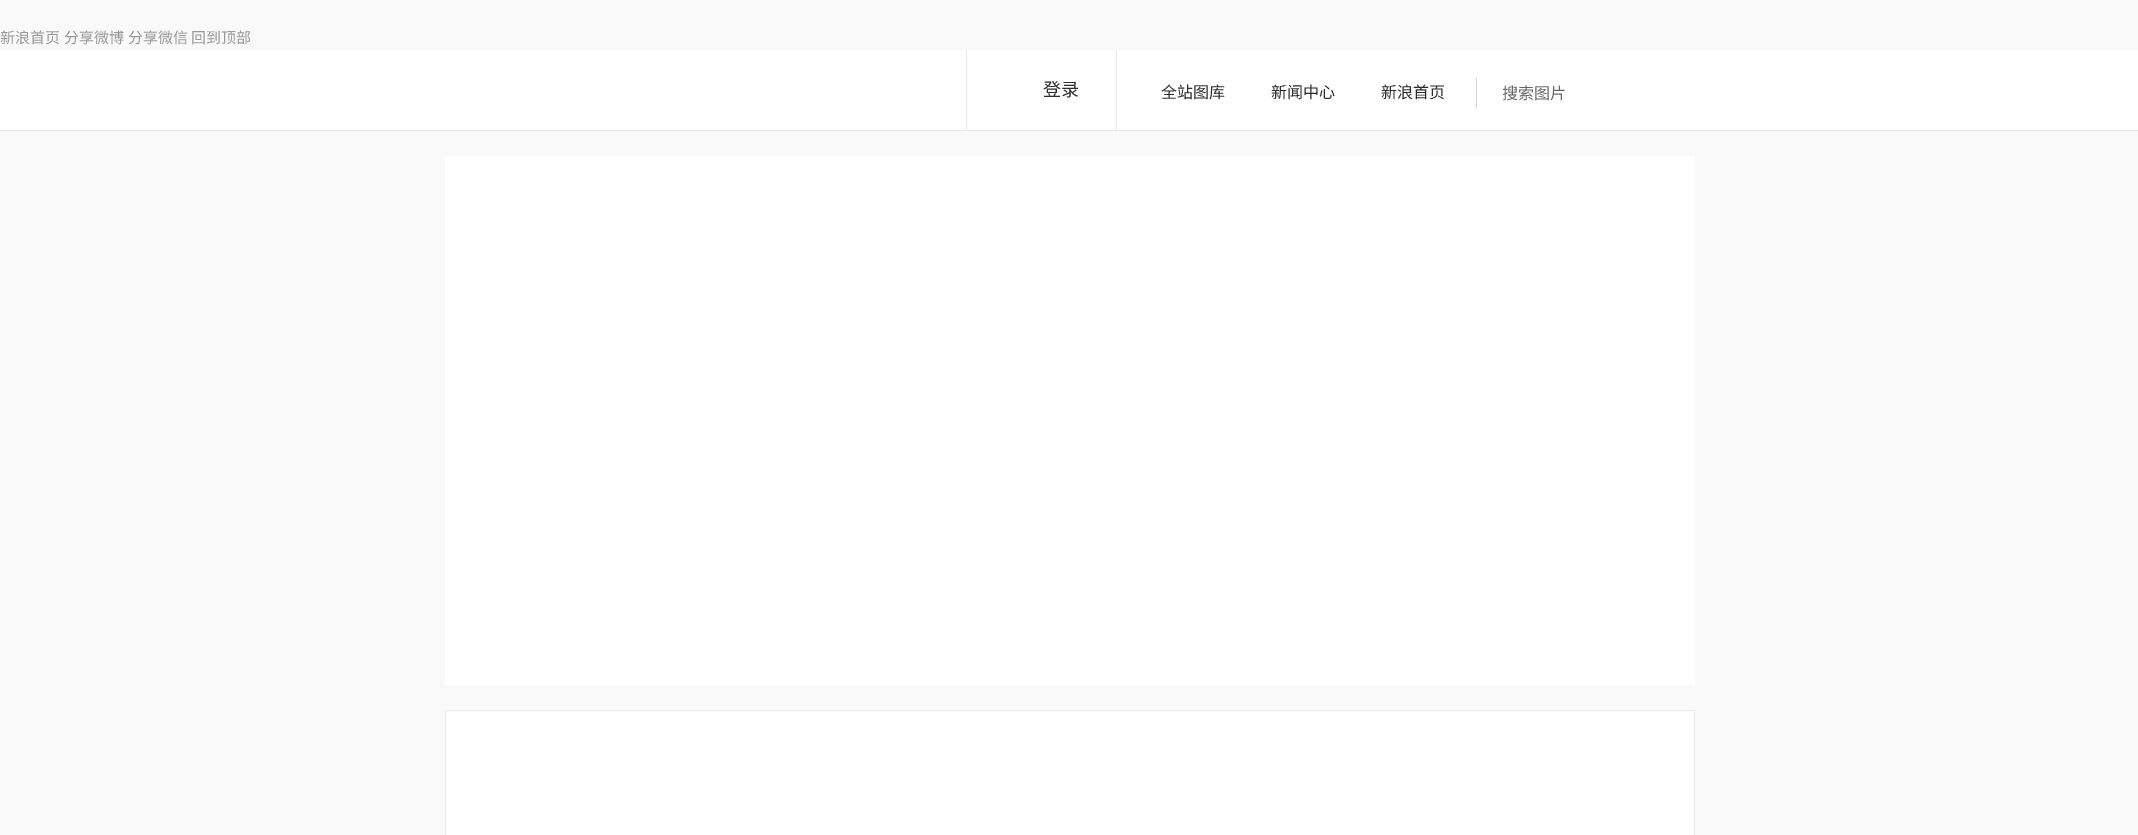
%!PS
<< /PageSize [2138 835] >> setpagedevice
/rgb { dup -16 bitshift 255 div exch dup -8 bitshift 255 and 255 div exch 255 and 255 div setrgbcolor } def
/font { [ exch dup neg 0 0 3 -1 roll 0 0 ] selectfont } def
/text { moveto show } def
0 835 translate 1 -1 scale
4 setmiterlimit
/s1 { /NotoSansCJKSC-Regular 15 font 16#999999 rgb } def
/s2 { /NotoSansCJKSC-Regular 18 font 16#2C2C2C rgb } def
/s3 { /NotoSansCJKSC-Regular 16 font 16#2C2C2C rgb } def
/s4 { /NotoSansCJKSC-Regular 16 font 16#666666 rgb } def
16#F9F9F9 rgb
0 0 2138 835 rectfill
s1
(新浪首页) 0 43 text
(分享微博) 64 43 text
(分享微信) 128 43 text
(回到顶部) 191 43 text
16#FFFFFF rgb
0 50 2138 80 rectfill
16#E8E8E8 rgb
0 130 2138 1 rectfill
16#E9E9E9 rgb
1116 50 1 80 rectfill
966 50 1 80 rectfill
s2
(登录) 1043 96 text
s3
(全站图库) 1161 98 text
(新闻中心) 1271 98 text
(新浪首页) 1381 98 text
16#D7D4CF rgb
1476 78 1 30 rectfill
gsave
1503 81 150 24 rectclip
s4
(搜索图片) 1502 99 text
grestore
16#FFFFFF rgb
445 156 1250 529 rectfill
445.5 710.5 moveto 1694.5 710.5 lineto 1694.5 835.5 lineto 445.5 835.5 lineto closepath gsave fill grestore
16#EEEEEE rgb
stroke
showpage
